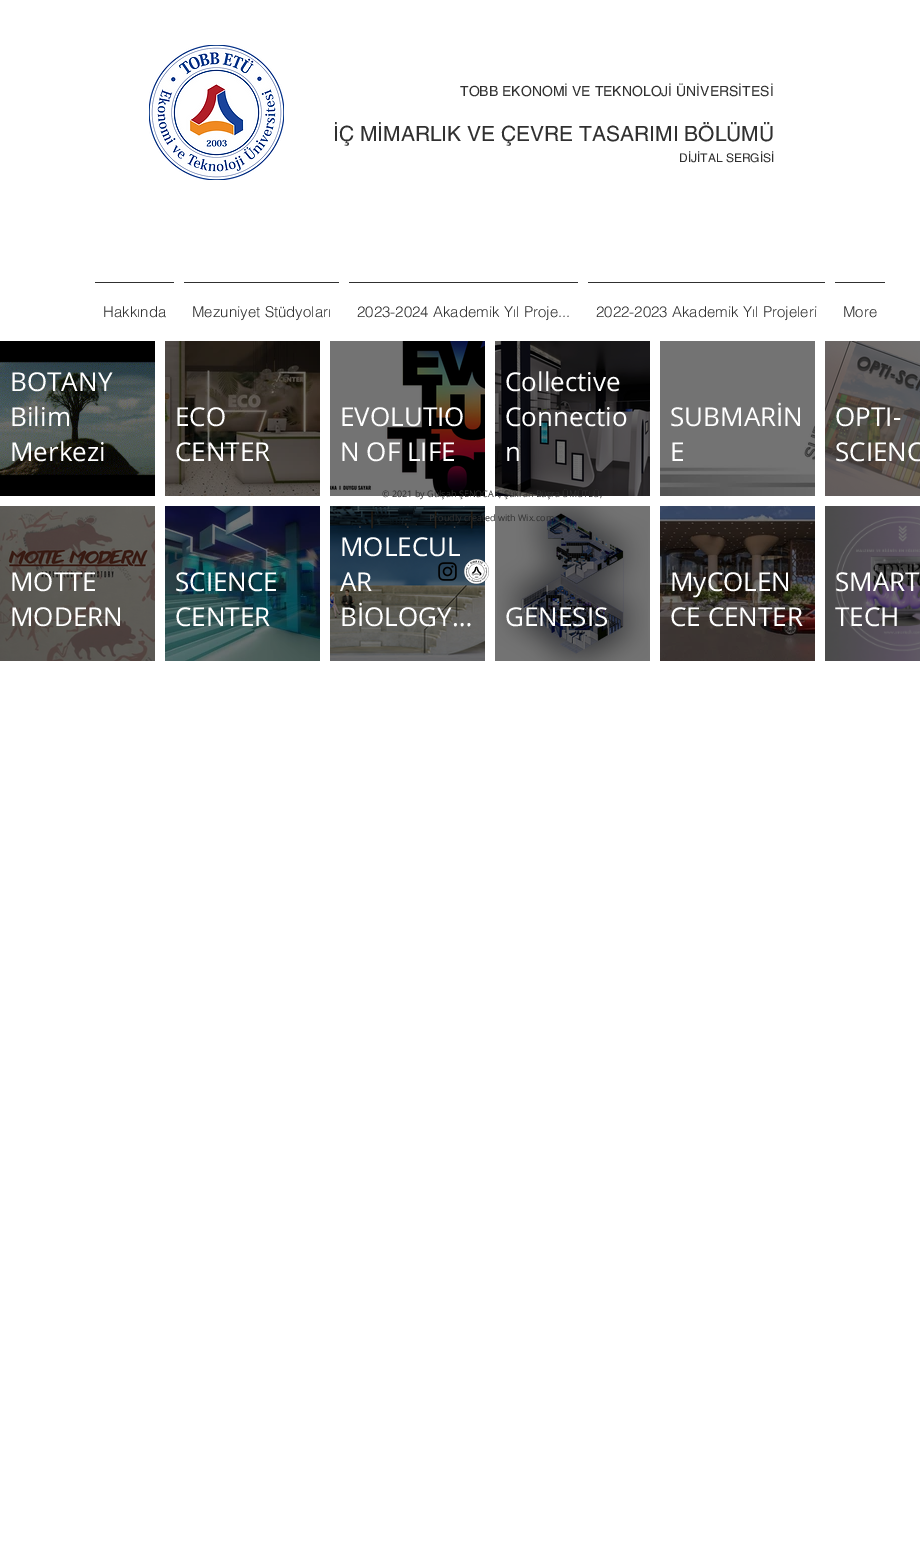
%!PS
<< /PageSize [920 1563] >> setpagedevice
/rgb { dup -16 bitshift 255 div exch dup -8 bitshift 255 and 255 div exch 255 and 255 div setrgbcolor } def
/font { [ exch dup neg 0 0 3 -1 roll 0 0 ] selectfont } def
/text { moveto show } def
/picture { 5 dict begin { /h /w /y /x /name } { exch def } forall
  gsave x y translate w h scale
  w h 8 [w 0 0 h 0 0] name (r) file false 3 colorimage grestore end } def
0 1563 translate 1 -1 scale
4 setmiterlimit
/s1 { /helvetica-Regular 14 font 16#303030 rgb } def
/s2 { /helvetica-Regular 21 font 16#303030 rgb } def
/s3 { /helvetica-Regular 12 font 16#303030 rgb } def
/s4 { /helvetica-Light 15 font 16#303030 rgb } def
/s5 { /OpenSans-Regular 26 font 16#FFFFFF rgb } def
/s6 { /OpenSans-Regular 9 font 16#303030 rgb } def
16#FFFFFF rgb
0 0 920 1563 rectfill
16#737373 rgb
495 506 155 155 rectfill
660 341 155 65 rectfill
(pic1.raw) 149 45 135 135 picture
s1
(TOBB EKONOMİ VE TEKNOLOJİ ÜNİVERSİTESİ) 460 96 text
s2
(İÇ MİMARLIK VE ÇEVRE TASARIMI BÖLÜMÜ) 333 141 text
s3
(DİJİTAL SERGİSİ) 679 162 text
95 282 79 1 rectfill
s4
(Hakkında) 103 317 text
184 282 155 1 rectfill
(Mezuniyet Stüdyoları) 192 317 text
349 282 229 1 rectfill
(2023-2024 Akademik Yıl Proje...) 357 317 text
588 282 237 1 rectfill
(2022-2023 Akademik Yıl Projeleri) 596 317 text
835 282 50 1 rectfill
(More) 843 317 text
(pic2.raw) 0 341 155 155 picture
(pic3.raw) 0 361 155 115 picture
s5
(BOTANY) 10 391 text
(Bilim) 10 426 text
(Merkezi) 10 461 text
(pic4.raw) 165 341 155 155 picture
(ECO) 175 426 text
(CENTER) 175 461 text
(pic5.raw) 330 341 155 155 picture
(EVOLUTIO) 340 426 text
(N OF LIFE) 340 461 text
(pic6.raw) 495 341 155 155 picture
(Collective) 505 391 text
(Connectio) 505 426 text
(n) 505 461 text
(pic7.raw) 660 406 155 90 picture
(SUBMARİN) 670 426 text
(E) 670 461 text
(pic8.raw) 825 341 95 155 picture
(OPTI-) 835 426 text
(SCIENC) 835 461 text
(pic9.raw) 0 506 155 155 picture
(MOTTE) 10 591 text
(MODERN) 10 626 text
(pic10.raw) 165 506 155 155 picture
(SCIENCE) 175 591 text
(CENTER) 175 626 text
(pic11.raw) 330 506 155 155 picture
(MOLECUL) 340 556 text
(AR) 340 591 text
(BİOLOGY…) 340 626 text
(pic12.raw) 497 506 151 155 picture
(pic13.raw) 521 513 103 141 picture
(GENESIS) 505 626 text
(pic14.raw) 660 506 155 155 picture
(MyCOLEN) 670 591 text
(CE CENTER) 670 626 text
(pic15.raw) 825 506 95 155 picture
(pic16.raw) 825 526 95 135 picture
(SMART) 835 591 text
(TECH) 835 626 text
s6
(© 2021 by Gülşah ŞENOCAK, Şükran Büşra ÜMÜTLÜ,) 382 497 text
(Proudly created with Wix.com) 429 521 text
(pic17.raw) 438 562 19 19 picture
(pic18.raw) 464 559 25 25 picture
showpage
